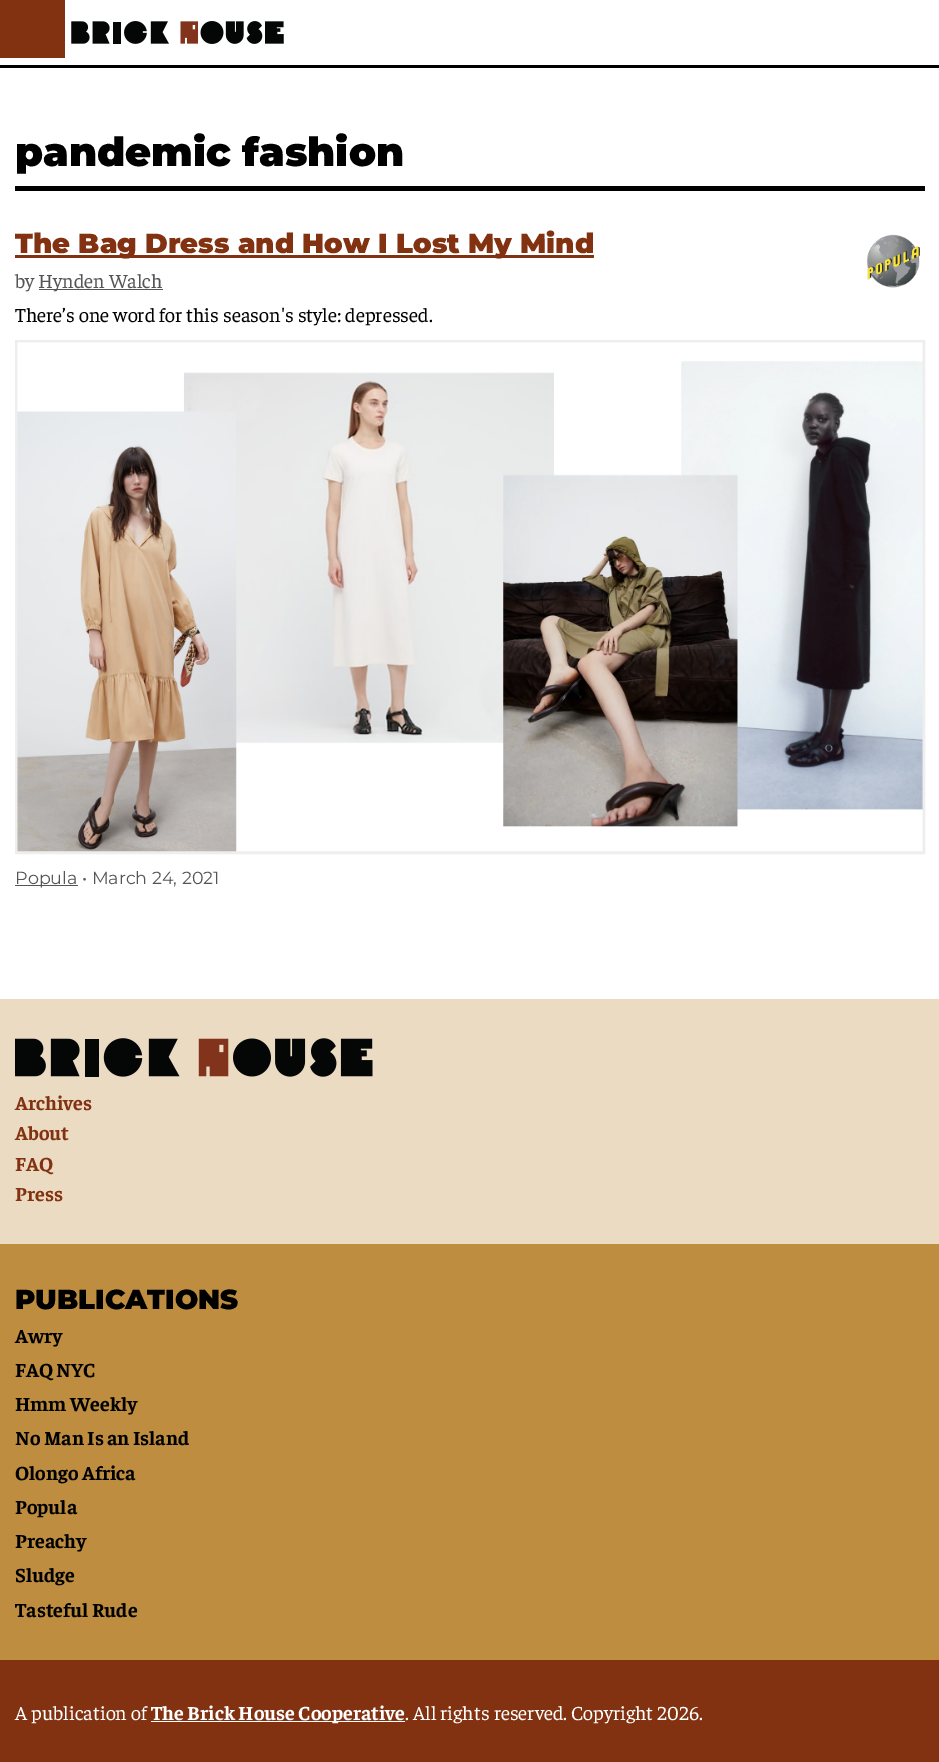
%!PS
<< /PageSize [939 1762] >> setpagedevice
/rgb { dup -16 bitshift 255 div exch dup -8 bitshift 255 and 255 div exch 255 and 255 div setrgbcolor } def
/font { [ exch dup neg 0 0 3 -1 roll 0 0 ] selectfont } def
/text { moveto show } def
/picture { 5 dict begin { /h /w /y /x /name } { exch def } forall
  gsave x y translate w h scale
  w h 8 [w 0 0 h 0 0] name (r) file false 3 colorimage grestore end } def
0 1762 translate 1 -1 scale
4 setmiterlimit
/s1 { /Montserrat-Black 40 font 16#000000 rgb } def
/s2 { /Montserrat-Black 27.5 font 16#823111 rgb } def
/s3 { /Faustina-Regular 20 font 16#555555 rgb } def
/s4 { /Faustina-Regular 20 font 16#000000 rgb } def
/s5 { /Montserrat-Regular 17.5 font 16#555555 rgb } def
/s6 { /Faustina-Bold 20 font 16#823111 rgb } def
/s7 { /Montserrat-Black 27.5 font 16#000000 rgb } def
/s8 { /Faustina-Bold 20 font 16#000000 rgb } def
/s9 { /Faustina-Regular 20 font 16#FFFFFF rgb } def
/s10 { /Faustina-Bold 20 font 16#FFFFFF rgb } def
16#FFFFFF rgb
0 0 939 1762 rectfill
16#000000 rgb
0 65 939 3 rectfill
16#823111 rgb
0 0 65 58 rectfill
(pic1.raw) 71 21 213 23 picture
16#000000 rgb
15 186 910 5 rectfill
s1
(pandemic fashion) 15 166 text
16#823111 rgb
15 255 579 3 rectfill
s2
(The Bag Dress and How I Lost My Mind) 15 253 text
(pic2.raw) 867 234 53 54 picture
s3
(by) 15 288 text
39 289 124 1 rectfill
(Hynden Walch) 38 288 text
s4
(There’s one word for this season's style: depressed.) 15 322 text
16#EEEEEE rgb
3 setlinewidth
16.5 341.5 907 511 rectstroke
(pic3.raw) 17 342 906 510 picture
16#555555 rgb
15 885 63 1 rectfill
s5
(Popula • March 24, 2021) 15 884 text
16#EBDBC2 rgb
0 999 939 245 rectfill
(pic4.raw) 15 1038 358 39 picture
s6
(Archives) 15 1110 text
(About) 15 1140 text
(FAQ) 15 1171 text
(Press) 15 1201 text
16#BE8D3F rgb
0 1244 939 416 rectfill
s7
(PUBLICATIONS) 15 1309 text
s8
(Awry) 15 1343 text
(FAQ NYC) 15 1377 text
(Hmm Weekly) 15 1411 text
(No Man Is an Island) 15 1445 text
(Olongo Africa) 15 1480 text
(Popula) 15 1514 text
(Preachy) 15 1548 text
(Sludge) 15 1582 text
(Tasteful Rude) 15 1617 text
16#823111 rgb
0 1660 939 102 rectfill
s9
(A publication of) 15 1720 text
151 1721 254 1 rectfill
s10
(The Brick House Cooperative) 151 1720 text
s9
(. All rights reserved. Copyright 2026.) 405 1720 text
showpage
